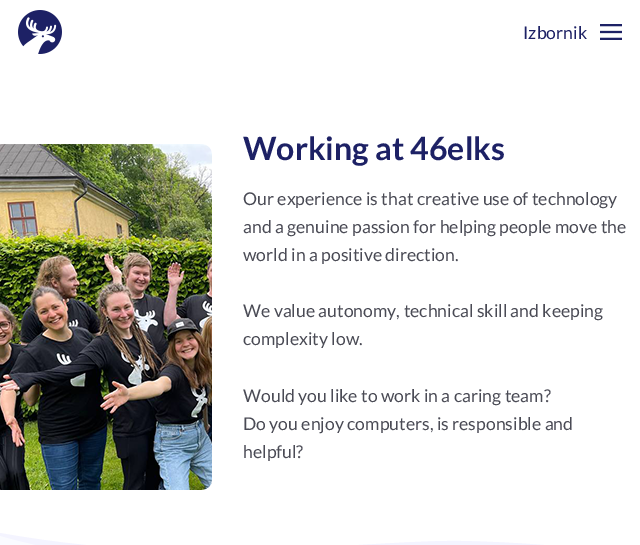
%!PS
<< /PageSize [640 545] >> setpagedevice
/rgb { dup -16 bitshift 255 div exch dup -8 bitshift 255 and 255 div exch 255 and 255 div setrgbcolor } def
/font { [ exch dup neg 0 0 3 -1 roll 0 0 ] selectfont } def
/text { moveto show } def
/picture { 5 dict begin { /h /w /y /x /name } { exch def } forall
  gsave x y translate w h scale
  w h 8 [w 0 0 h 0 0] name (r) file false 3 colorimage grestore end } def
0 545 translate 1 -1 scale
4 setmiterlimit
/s1 { /Lato-Regular 17.6 font 16#1D2165 rgb } def
/s2 { /Lato-Bold 32 font 16#1D2165 rgb } def
/s3 { /Lato-Regular 17.6 font 16#4A4B55 rgb } def
16#FFFFFF rgb
0 0 640 545 rectfill
(pic1.raw) 18 10 44 44 picture
s1
(Izbornik) 523 39 text
(pic2.raw) 600 24 22 16 picture
(pic3.raw) 0 144 212 346 picture
s2
(Working at 46elks) 243 160 text
s3
(Our experience is that creative use of technology) 243 205 text
(and a genuine passion for helping people move the) 243 233 text
(world in a positive direction.) 243 261 text
(We value autonomy, technical skill and keeping) 243 317 text
(complexity low.) 243 345 text
(Would you like to work in a caring team?) 243 402 text
(Do you enjoy computers, is responsible and) 243 430 text
(helpful?) 243 458 text
16#F4F4FF rgb
640 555 moveto 578 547 518 542 461 541 curveto 400 540 264 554 176 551 curveto 114 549 55 543 0 533 curveto 0 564 lineto 640 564 lineto closepath eofill
16#FAFBFF rgb
640 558 moveto 578 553 519 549 462 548 curveto 401 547 264 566 176 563 curveto 114 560 55 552 0 536 curveto 0 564 lineto 640 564 lineto closepath eofill
showpage
